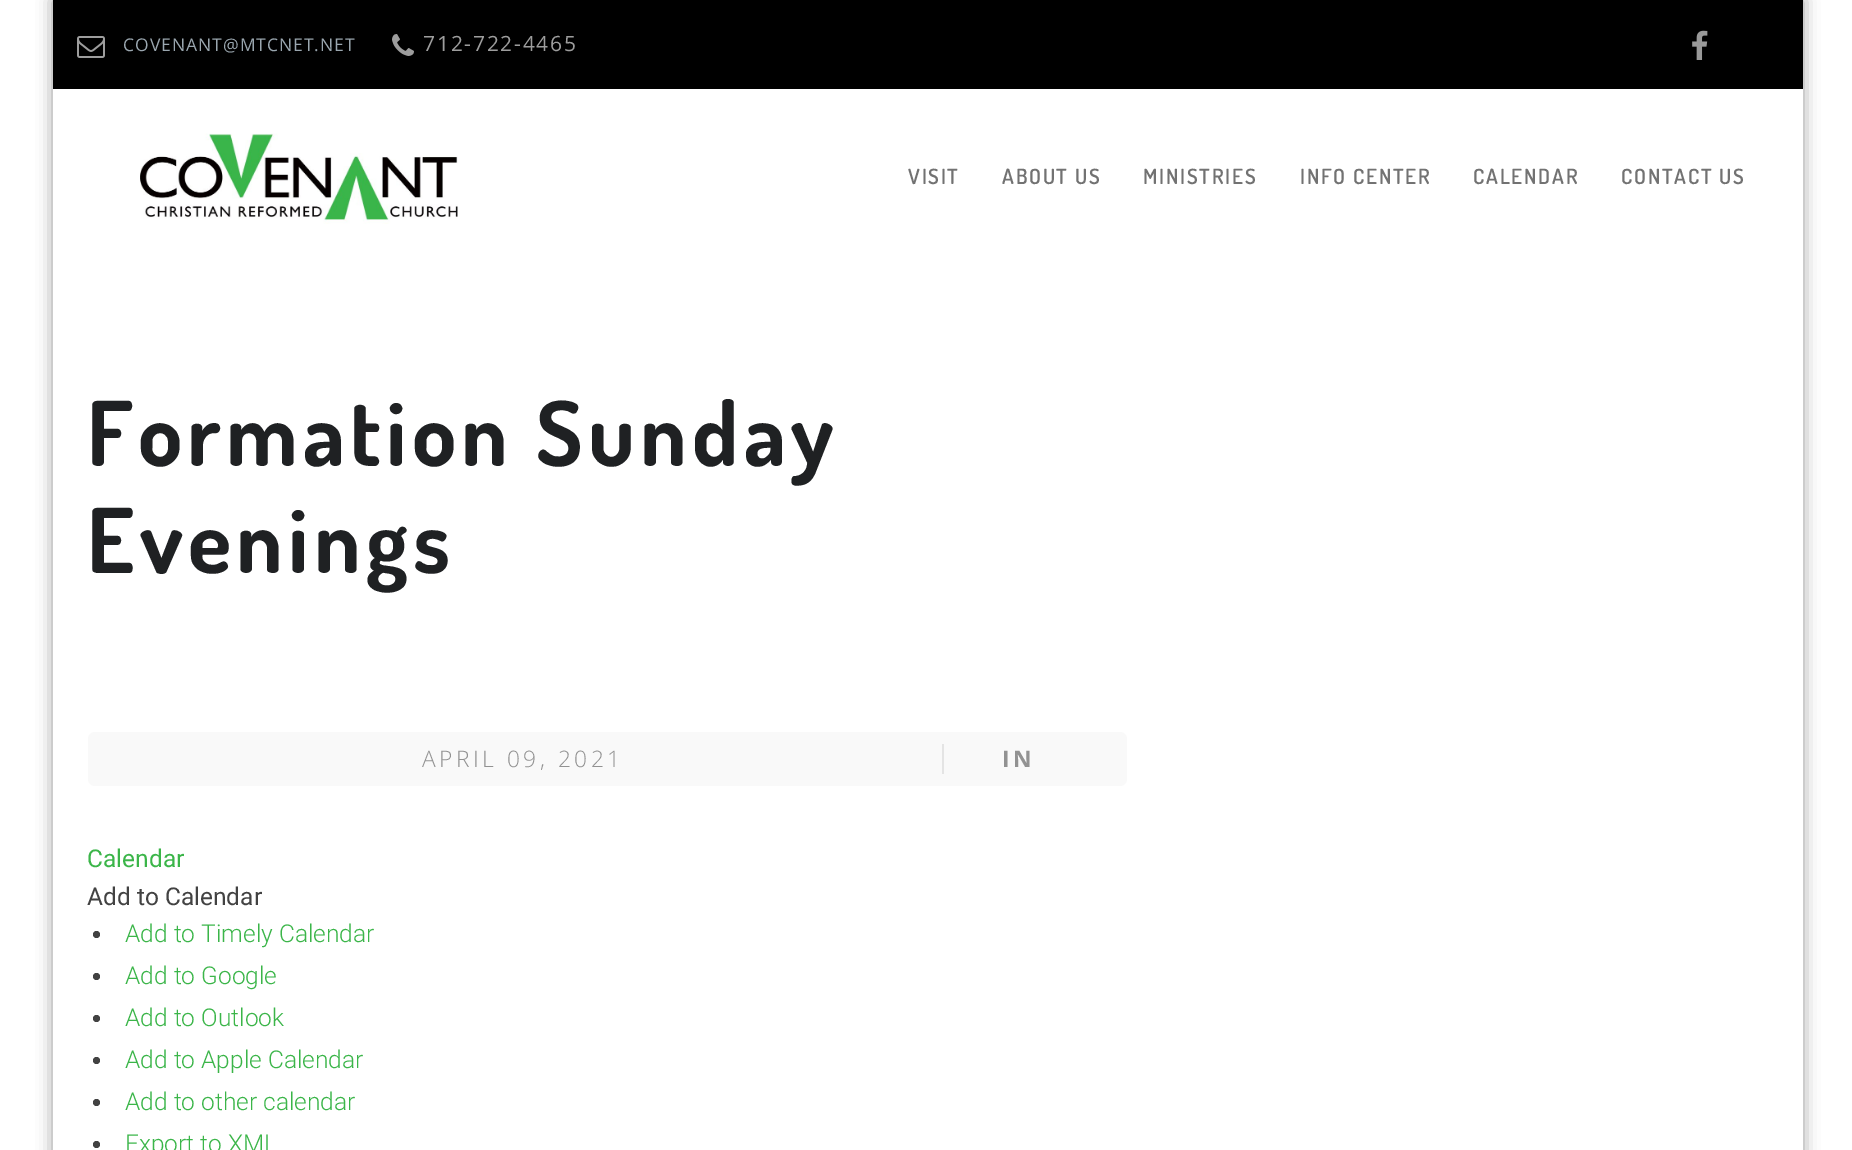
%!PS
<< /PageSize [1852 1150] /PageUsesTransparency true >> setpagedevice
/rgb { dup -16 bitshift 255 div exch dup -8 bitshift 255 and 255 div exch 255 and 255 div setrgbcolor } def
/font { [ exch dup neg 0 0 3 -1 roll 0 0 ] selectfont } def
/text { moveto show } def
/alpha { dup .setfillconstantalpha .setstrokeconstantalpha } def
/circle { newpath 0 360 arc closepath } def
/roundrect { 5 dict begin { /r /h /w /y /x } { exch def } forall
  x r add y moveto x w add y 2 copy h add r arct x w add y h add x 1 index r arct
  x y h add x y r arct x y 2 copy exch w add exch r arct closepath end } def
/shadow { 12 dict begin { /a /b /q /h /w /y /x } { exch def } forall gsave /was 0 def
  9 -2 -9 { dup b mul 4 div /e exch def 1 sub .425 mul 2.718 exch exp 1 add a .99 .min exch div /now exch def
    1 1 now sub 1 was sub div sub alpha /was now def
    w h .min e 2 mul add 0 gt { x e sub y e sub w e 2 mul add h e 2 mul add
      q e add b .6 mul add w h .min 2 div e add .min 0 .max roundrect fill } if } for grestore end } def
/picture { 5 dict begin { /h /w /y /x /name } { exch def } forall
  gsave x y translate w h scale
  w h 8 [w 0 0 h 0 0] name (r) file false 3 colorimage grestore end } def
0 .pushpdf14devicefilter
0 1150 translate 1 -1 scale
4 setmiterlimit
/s1 { /Roboto-Regular 24.5 font 16#3BB549 rgb } def
/s2 { /Roboto-Regular 24.5 font 16#424242 rgb } def
/s3 { /Roboto-Light 24.5 font 16#3BB549 rgb } def
16#FFFFFF rgb
0 0 1852 1150 rectfill
16#000000 rgb
53 0 1750 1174 0 8 0.4 shadow
16#FFFFFF rgb
53 89 1750 1061 rectfill
16#000000 rgb
53 0 1750 89 rectfill
(pic1.raw) 77 36 28 22 picture
/OpenSans-Regular 17.5 font
16#9AA6AF rgb
123 51 moveto 1 0 (COVENANT@MTCNET.NET) ashow
(pic2.raw) 392 34 22 22 picture
/OpenSans-Regular 21 font
16#9D9D9D rgb
423 51 moveto 1.75 0 (712-722-4465) ashow
(pic3.raw) 1692 30 16 30 picture
(pic4.raw) 140 133 318 91 picture
/Dosis-SemiBold 21 font
16#727272 rgb
908 184 moveto 1.75 0 (VISIT) ashow
1002 184 moveto 1.75 0 (ABOUT US) ashow
1143 184 moveto 1.75 0 (MINISTRIES) ashow
1300 184 moveto 1.75 0 (INFO CENTER) ashow
1473 184 moveto 1.75 0 (CALENDAR) ashow
1621 184 moveto 1.75 0 (CONTACT US) ashow
/Dosis-Bold 89.25 font
16#1F2123 rgb
87 466 moveto 5.25 0 (Formation Sunday) ashow
87 573 moveto 5.25 0 (Evenings) ashow
16#F9F9F9 rgb
88 732 1039 54 7 roundrect fill
16#E4E4E4 rgb
942 744 2 30 rectfill
/OpenSans-Light 22.75 font
16#929292 rgb
422 767 moveto 3.5 0 (APRIL 09, 2021) ashow
/OpenSans-Bold 22.75 font
1002 767 moveto 3.5 0 (IN) ashow
s1
(Calendar) 87 867 text
s2
(Add to Calendar) 87 905 text
96.5 934.5 3.5 circle fill
s3
(Add to Timely Calendar) 125 942 text
16#424242 rgb
96.5 976.5 3.5 circle fill
s3
(Add to Google) 125 984 text
16#424242 rgb
96.5 1018.5 3.5 circle fill
s3
(Add to Outlook) 125 1026 text
16#424242 rgb
96.5 1060.5 3.5 circle fill
s3
(Add to Apple Calendar) 125 1068 text
16#424242 rgb
96.5 1102.5 3.5 circle fill
s3
(Add to other calendar) 125 1110 text
16#424242 rgb
96.5 1144.5 3.5 circle fill
s3
(Export to XML) 125 1152 text
.poppdf14devicefilter showpage
